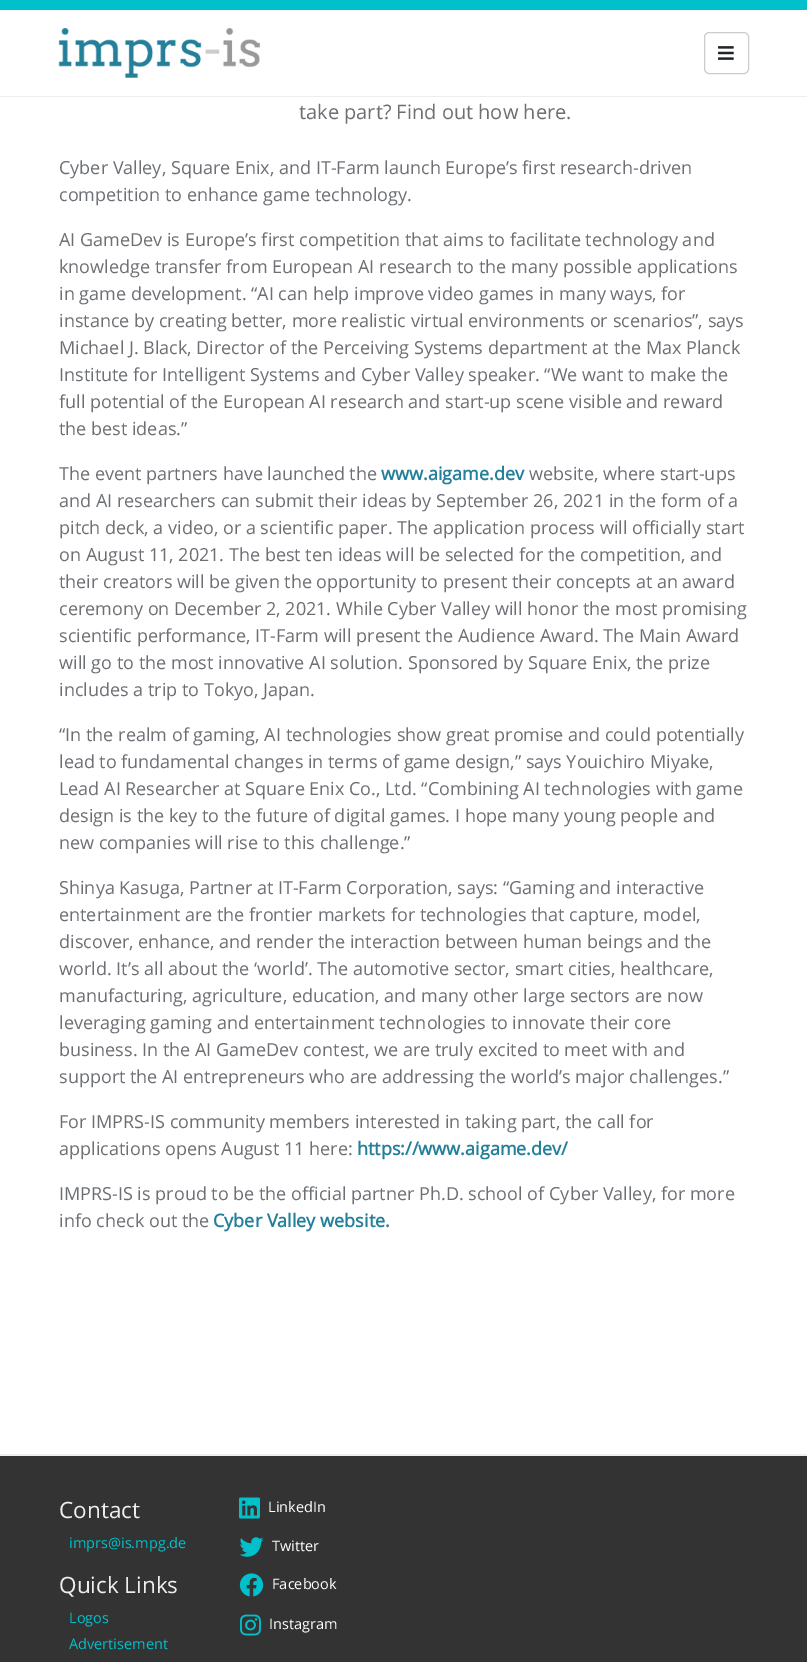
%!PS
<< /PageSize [807 1662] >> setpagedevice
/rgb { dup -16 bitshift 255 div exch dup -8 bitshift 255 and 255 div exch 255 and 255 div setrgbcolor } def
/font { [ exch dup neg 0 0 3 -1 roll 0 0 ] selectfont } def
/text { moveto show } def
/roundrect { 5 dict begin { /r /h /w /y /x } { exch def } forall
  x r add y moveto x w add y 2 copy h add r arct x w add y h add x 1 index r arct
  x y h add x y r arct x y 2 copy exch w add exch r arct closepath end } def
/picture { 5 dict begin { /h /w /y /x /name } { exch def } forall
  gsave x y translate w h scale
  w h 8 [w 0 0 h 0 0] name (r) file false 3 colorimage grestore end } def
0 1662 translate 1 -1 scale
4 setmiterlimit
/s1 { /OpenSans-Regular 20 font 16#6C6F73 rgb } def
/s2 { /OpenSans-Regular 18 font 16#6C6F73 rgb } def
/s3 { /OpenSans-Bold 18 font 16#237F9A rgb } def
/s4 { /OpenSans-Regular 22.5 font 16#EEEEEE rgb } def
/s5 { /OpenSans-Regular 14.5 font 16#00C1CB rgb } def
/s6 { /OpenSans-Regular 14.5 font 16#FFFFFF rgb } def
16#FFFFFF rgb
0 0 807 1662 rectfill
16#00C1CB rgb
0 0 807 10 rectfill
16#EEEEEE rgb
0 96 807 1 rectfill
(pic1.raw) 58 28 202 50 picture
16#CCCCCC rgb
704.5 32.5 44 41 4.5 roundrect stroke
(pic2.raw) 718 46 16 14 picture
16#EEEEEE rgb
0 1454 807 2 rectfill
s1
(take part? Find out how here.) 299 119 text
s2
(Cyber Valley, Square Enix, and IT-Farm launch Europe’s first research-driven) 59 174 text
(competition to enhance game technology.) 59 201 text
(AI GameDev is Europe’s first competition that aims to facilitate technology and) 59 246 text
(knowledge transfer from European AI research to the many possible applications) 59 273 text
(in game development. “AI can help improve video games in many ways, for) 59 300 text
(instance by creating better, more realistic virtual environments or scenarios”, says) 59 327 text
(Michael J. Black, Director of the Perceiving Systems department at the Max Planck) 59 354 text
(Institute for Intelligent Systems and Cyber Valley speaker. “We want to make the) 59 381 text
(full potential of the European AI research and start-up scene visible and reward) 59 408 text
(the best ideas.”) 59 435 text
(The event partners have launched the) 59 480 text
s3
(www.aigame.dev) 381 480 text
s2
(website, where start-ups) 529 480 text
(and AI researchers can submit their ideas by September 26, 2021 in the form of a) 59 507 text
(pitch deck, a video, or a scientific paper. The application process will officially start) 59 534 text
(on August 11, 2021. The best ten ideas will be selected for the competition, and) 59 561 text
(their creators will be given the opportunity to present their concepts at an award) 59 588 text
(ceremony on December 2, 2021. While Cyber Valley will honor the most promising) 59 615 text
(scientific performance, IT-Farm will present the Audience Award. The Main Award) 59 642 text
(will go to the most innovative AI solution. Sponsored by Square Enix, the prize) 59 669 text
(includes a trip to Tokyo, Japan.) 59 696 text
(“In the realm of gaming, AI technologies show great promise and could potentially) 59 741 text
(lead to fundamental changes in terms of game design,” says Youichiro Miyake,) 59 768 text
(Lead AI Researcher at Square Enix Co., Ltd. “Combining AI technologies with game) 59 795 text
(design is the key to the future of digital games. I hope many young people and) 59 822 text
(new companies will rise to this challenge.”) 59 849 text
(Shinya Kasuga, Partner at IT-Farm Corporation, says: “Gaming and interactive) 59 894 text
(entertainment are the frontier markets for technologies that capture, model,) 59 921 text
(discover, enhance, and render the interaction between human beings and the) 59 948 text
(world. It’s all about the ‘world’. The automotive sector, smart cities, healthcare,) 59 975 text
(manufacturing, agriculture, education, and many other large sectors are now) 59 1002 text
(leveraging gaming and entertainment technologies to innovate their core) 59 1029 text
(business. In the AI GameDev contest, we are truly excited to meet with and) 59 1056 text
(support the AI entrepreneurs who are addressing the world’s major challenges.”) 59 1083 text
(For IMPRS-IS community members interested in taking part, the call for) 59 1128 text
(applications opens August 11 here:) 59 1155 text
s3
(https://www.aigame.dev/) 357 1155 text
s2
(IMPRS-IS is proud to be the official partner Ph.D. school of Cyber Valley, for more) 59 1200 text
(info check out the) 59 1227 text
s3
(Cyber Valley website.) 213 1227 text
16#333333 rgb
0 1456 807 206 rectfill
s4
(Contact) 59 1518 text
s5
(imprs@is.mpg.de) 69 1548 text
s4
(Quick Links) 59 1593 text
s5
(Logos) 69 1623 text
(Advertisement) 69 1649 text
(pic3.raw) 239 1497 21 22 picture
s6
(LinkedIn) 268 1512 text
(pic4.raw) 239 1537 25 20 picture
(Twitter) 272 1551 text
(pic5.raw) 239 1573 25 24 picture
(Facebook) 272 1589 text
(pic6.raw) 240 1614 21 22 picture
(Instagram) 269 1629 text
showpage
